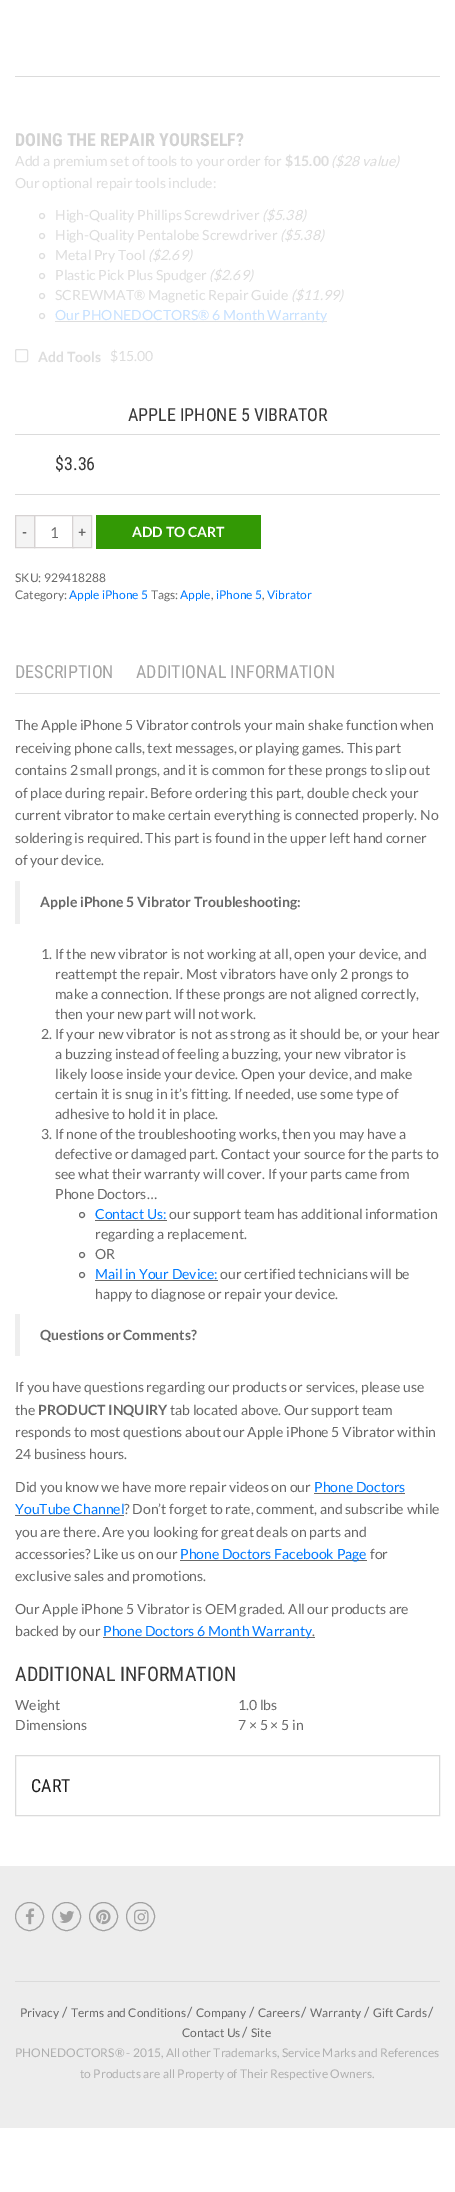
%!PS
<< /PageSize [455 2192] >> setpagedevice
/rgb { dup -16 bitshift 255 div exch dup -8 bitshift 255 and 255 div exch 255 and 255 div setrgbcolor } def
/font { [ exch dup neg 0 0 3 -1 roll 0 0 ] selectfont } def
/text { moveto show } def
/circle { newpath 0 360 arc closepath } def
/roundrect { 5 dict begin { /r /h /w /y /x } { exch def } forall
  x r add y moveto x w add y 2 copy h add r arct x w add y h add x 1 index r arct
  x y h add x y r arct x y 2 copy exch w add exch r arct closepath end } def
/picture { 5 dict begin { /h /w /y /x /name } { exch def } forall
  gsave x y translate w h scale
  w h 8 [w 0 0 h 0 0] name (r) file false 3 colorimage grestore end } def
0 2192 translate 1 -1 scale
4 setmiterlimit
/s1 { /RobotoCondensed-Bold 18 font 16#D2D2D2 rgb } def
/s2 { /Lato-Regular 14 font 16#DDDDDD rgb } def
/s3 { /Lato-Bold 14 font 16#DDDDDD rgb } def
/s4 { /Lato-Italic 14 font 16#DDDDDD rgb } def
/s5 { /Lato-Regular 14 font 16#C6E1FF rgb } def
/s6 { /RobotoCondensed-Regular 18 font 16#383838 rgb } def
/s7 { /Lato-Bold 14 font 16#686868 rgb } def
/s8 { /Lato-Regular 15 font 16#686868 rgb } def
/s9 { /Lato-Bold 14 font 16#FFFFFF rgb } def
/s10 { /Lato-Regular 12 font 16#686868 rgb } def
/s11 { /Lato-Regular 12 font 16#007AFF rgb } def
/s12 { /RobotoCondensed-Regular 18 font 16#A4A4A4 rgb } def
/s13 { /Lato-Regular 14 font 16#686868 rgb } def
/s14 { /Lato-Regular 14 font 16#007AFF rgb } def
/s15 { /RobotoCondensed-Regular 20 font 16#383838 rgb } def
/s16 { /RobotoCondensed-Regular 18 font 16#1F1F1F rgb } def
/s17 { /Lato-Regular 12 font 16#B0B0B0 rgb } def
16#FFFFFF rgb
0 0 455 2192 rectfill
16#DBDBDB rgb
15 76 425 1 rectfill
s1
(DOING THE REPAIR YOURSELF?) 15 146 text
s2
(Add a premium set of tools to your order for) 15 166 text
s3
($15.00) 285 166 text
s4
(\($28 value\)) 331 166 text
s2
(Our optional repair tools include:) 15 188 text
42 216 2.5 circle stroke
(High-Quality Phillips Screwdriver) 55 220 text
s4
(\($5.38\)) 262 220 text
42 236 2.5 circle stroke
s2
(High-Quality Pentalobe Screwdriver) 55 240 text
s4
(\($5.38\)) 280 240 text
42 256 2.5 circle stroke
s2
(Metal Pry Tool) 55 260 text
s4
(\($2.69\)) 148 260 text
42 276 2.5 circle stroke
s2
(Plastic Pick Plus Spudger) 55 280 text
s4
(\($2.69\)) 209 280 text
42 296 2.5 circle stroke
s2
(SCREWMAT® Magnetic Repair Guide) 55 300 text
s4
(\($11.99\)) 291 300 text
42 316 2.5 circle stroke
55 321 272 1 rectfill
s5
(Our PHONEDOCTORS® 6 Month Warranty) 55 320 text
16#E0E0E0 rgb
15.5 349.5 12 12 1.5 roundrect stroke
s3
(Add Tools) 38 362 text
s2
($15.00) 110 361 text
s6
(APPLE IPHONE 5 VIBRATOR) 128 421 text
16#DBDBDB rgb
15 434 425 1 rectfill
s6
($3.36) 55 470 text
16#DBDBDB rgb
15 494 425 1 rectfill
16#F4F4F4 rgb
15.5 515.5 moveto 34.5 515.5 lineto 34.5 547.5 lineto 15.5 547.5 lineto closepath gsave fill grestore
16#D6D2D2 rgb
stroke
s7
(-) 22 537 text
16#D6D2D2 rgb
34.5 515.5 39 32 rectstroke
s8
(1) 50 538 text
16#F4F4F4 rgb
72.5 515.5 moveto 91.5 515.5 lineto 91.5 547.5 lineto 72.5 547.5 lineto closepath gsave fill grestore
16#D6D2D2 rgb
stroke
s7
(+) 78 537 text
16#339905 rgb
96 515 165 34 rectfill
s9
(ADD TO CART) 132 537 text
s10
(SKU: 929418288) 15 582 text
(Category:) 15 599 text
s11
(Apple iPhone 5) 69 599 text
s10
(Tags:) 151 599 text
s11
(Apple) 180 599 text
s10
(,) 211 599 text
s11
(iPhone 5) 216 599 text
s10
(,) 262 599 text
s11
(Vibrator) 267 599 text
16#DBDBDB rgb
15 693 425 1 rectfill
s12
(DESCRIPTION) 15 678 text
(ADDITIONAL INFORMATION) 136 678 text
s13
(The Apple iPhone 5 Vibrator controls your main shake function when) 15 730 text
(receiving phone calls, text messages, or playing games. This part) 15 753 text
(contains 2 small prongs, and it is common for these prongs to slip out) 15 775 text
(of place during repair. Before ordering this part, double check your) 15 798 text
(current vibrator to make certain everything is connected properly. No) 15 820 text
(soldering is required. This part is found in the upper left hand corner) 15 843 text
(of your device.) 15 865 text
16#EEEEEE rgb
15 881 5 43 rectfill
s7
(Apple iPhone 5 Vibrator Troubleshooting:) 40 907 text
s13
(1. If the new vibrator is not working at all, open your device, and) 41 959 text
(reattempt the repair. Most vibrators have only 2 prongs to) 55 979 text
(make a connection. If these prongs are not aligned correctly,) 55 999 text
(then your new part will not work.) 55 1019 text
(2. If your new vibrator is not as strong as it should be, or your hear) 41 1039 text
(a buzzing instead of feeling a buzzing, your new vibrator is) 55 1059 text
(likely loose inside your device. Open your device, and make) 55 1079 text
(certain it is snug in it’s fitting. If needed, use some type of) 55 1099 text
(adhesive to hold it in place.) 55 1119 text
(3. If none of the troubleshooting works, then you may have a) 41 1139 text
(defective or damaged part. Contact your source for the parts to) 55 1159 text
(see what their warranty will cover. If your parts came from) 55 1179 text
(Phone Doctors…) 55 1199 text
82 1215 2.5 circle stroke
s14
(Contact Us:) 95 1219 text
16#686868 rgb
95 1220 72 1 rectfill
(our support team has additional information) 169 1219 text
(regarding a replacement.) 95 1239 text
82 1255 2.5 circle stroke
(OR) 95 1259 text
82 1275 2.5 circle stroke
s14
(Mail in Your Device:) 95 1279 text
16#686868 rgb
95 1280 123 1 rectfill
(our certified technicians will be) 220 1279 text
(happy to diagnose or repair your device.) 95 1299 text
16#EEEEEE rgb
15 1314 5 42 rectfill
s7
(Questions or Comments?) 40 1340 text
s13
(If you have questions regarding our products or services, please use) 15 1392 text
(the) 15 1415 text
s7
(PRODUCT INQUIRY) 38 1415 text
s13
(tab located above. Our support team) 170 1415 text
(responds to most questions about our Apple iPhone 5 Vibrator within) 15 1437 text
(24 business hours.) 15 1459 text
(Did you know we have more repair videos on our) 15 1492 text
s14
(Phone Doctors) 314 1492 text
16#686868 rgb
314 1493 91 1 rectfill
s14
(YouTube Channel) 15 1514 text
16#686868 rgb
15 1515 109 1 rectfill
(? Don’t forget to rate, comment, and subscribe while) 124 1514 text
(you are there. Are you looking for great deals on parts and) 15 1537 text
(accessories? Like us on our) 15 1559 text
180 1560 187 1 rectfill
s14
(Phone Doctors Facebook Page) 180 1559 text
s13
(for) 370 1559 text
(exclusive sales and promotions.) 15 1581 text
(Our Apple iPhone 5 Vibrator is OEM graded. All our products are) 15 1614 text
(backed by our) 15 1636 text
103 1637 209 1 rectfill
s14
(Phone Doctors 6 Month Warranty) 103 1636 text
s13
(.) 312 1636 text
312 1637 3 1 rectfill
s15
(ADDITIONAL INFORMATION) 15 1681 text
s13
(Weight) 15 1710 text
(1.0 lbs) 238 1710 text
(Dimensions) 15 1730 text
(7 × 5 × 5 in) 238 1730 text
16#DBDBDB rgb
15.5 1755.5 424 60 rectstroke
s16
(CART) 31 1792 text
16#EDEDED rgb
0 1866 455 262 rectfill
16#A1A1A1 rgb
29.5 1916.5 14 circle stroke
(pic1.raw) 25 1908 10 17 picture
66.5 1916.5 14 circle stroke
(pic2.raw) 59 1910 16 13 picture
103.5 1916.5 14 circle stroke
(pic3.raw) 96 1909 15 16 picture
140.5 1916.5 14 circle stroke
(pic4.raw) 134 1909 15 16 picture
16#DBDBDB rgb
15 1981 425 1 rectfill
s10
(Privacy) 20 2017 text
s13
(/) 62 2017 text
s10
(Terms and Conditions) 71 2017 text
s13
(/) 187 2017 text
s10
(Company) 196 2017 text
s13
(/) 249 2017 text
s10
(Careers) 258 2017 text
s13
(/) 301 2017 text
s10
(Warranty) 310 2017 text
s13
(/) 364 2017 text
s10
(Gift Cards) 373 2017 text
s13
(/) 428 2017 text
s10
(Contact Us) 182 2037 text
s13
(/) 242 2037 text
s10
(Site) 251 2037 text
s17
(PHONEDOCTORS® - 2015, All other Trademarks, Service Marks and References) 15 2057 text
(to Products are all Property of Their Respective Owners.) 80 2078 text
showpage
